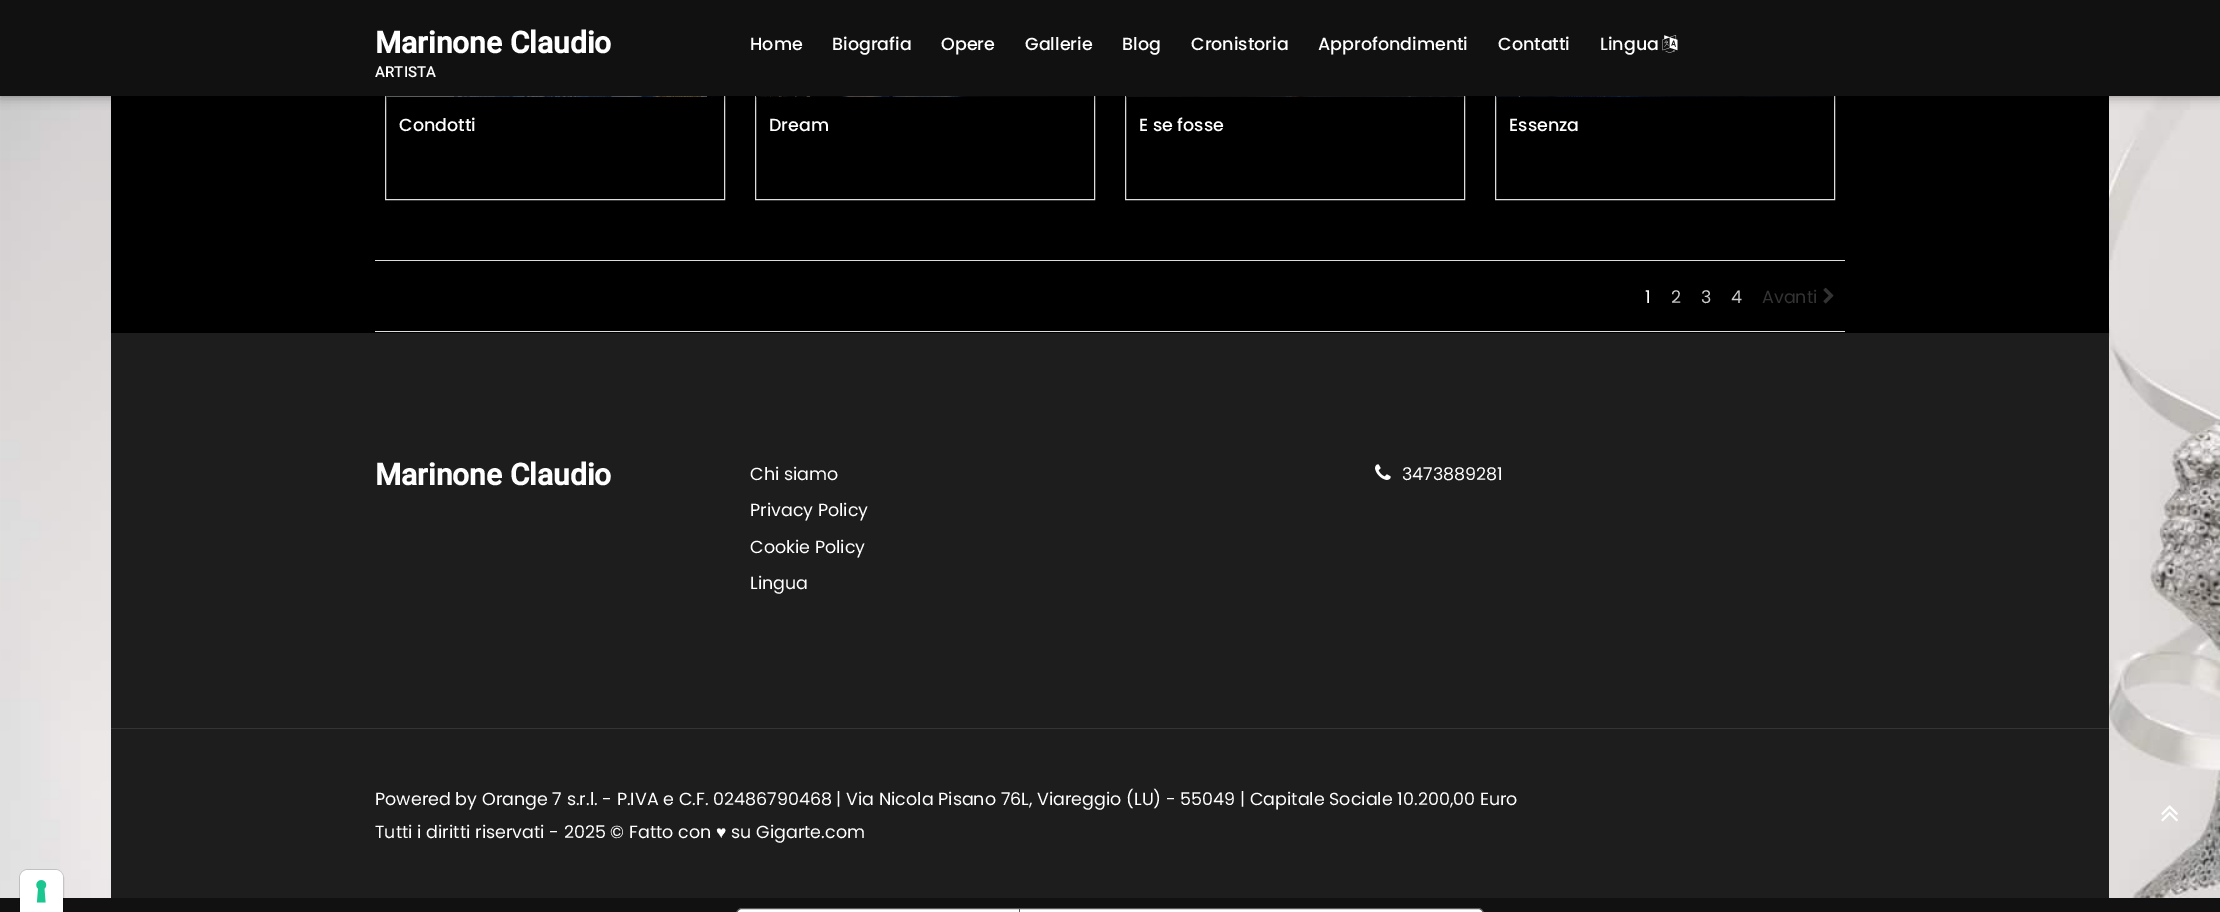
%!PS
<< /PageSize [2220 912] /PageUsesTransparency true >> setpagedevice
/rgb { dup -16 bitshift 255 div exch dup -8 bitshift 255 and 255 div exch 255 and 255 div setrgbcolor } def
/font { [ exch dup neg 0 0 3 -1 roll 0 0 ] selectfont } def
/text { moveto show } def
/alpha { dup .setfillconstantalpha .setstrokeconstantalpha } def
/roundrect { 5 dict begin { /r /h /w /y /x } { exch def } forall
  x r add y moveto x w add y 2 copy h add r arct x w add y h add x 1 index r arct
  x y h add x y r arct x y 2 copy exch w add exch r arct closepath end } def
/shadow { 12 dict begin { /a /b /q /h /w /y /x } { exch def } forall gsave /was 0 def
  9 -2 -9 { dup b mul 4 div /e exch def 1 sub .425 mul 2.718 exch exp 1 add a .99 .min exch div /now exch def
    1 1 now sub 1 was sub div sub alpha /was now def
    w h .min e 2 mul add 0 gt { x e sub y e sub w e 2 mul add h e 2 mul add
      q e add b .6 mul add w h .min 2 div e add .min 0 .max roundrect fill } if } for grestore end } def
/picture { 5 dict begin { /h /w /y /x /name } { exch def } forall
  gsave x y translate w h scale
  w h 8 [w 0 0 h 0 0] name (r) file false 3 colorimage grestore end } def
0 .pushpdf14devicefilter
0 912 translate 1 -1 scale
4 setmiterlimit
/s1 { /Roboto-Bold 30 font 16#FFFFFF rgb } def
/s2 { /Roboto-Medium 15 font 16#FFFFFF rgb } def
/s3 { /Poppins-Medium 17.5 font 16#FFFFFF rgb } def
/s4 { /Poppins-Regular 17.5 font 16#FFFFFF rgb } def
/s5 { /Poppins-Regular 17.5 font 16#CCCCCC rgb } def
/s6 { /Poppins-Regular 17.5 font 16#333333 rgb } def
/s7 { /LiberationSans-Regular 17.5 font 16#FFFFFF rgb } def
16#111111 rgb
0 0 2220 912 rectfill
(pic1.raw) 0 96 2220 802 picture
16#000000 rgb
111 96 1998 237 rectfill
16#DDDDDD rgb
385.5 -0.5 339 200 rectstroke
(pic3.raw) 386 96 338 1 picture
755.5 -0.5 339 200 rectstroke
(pic4.raw) 756 96 338 1 picture
1125.5 -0.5 339 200 rectstroke
(pic5.raw) 1126 96 338 1 picture
1495.5 -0.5 339 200 rectstroke
(pic6.raw) 1496 96 338 1 picture
16#000000 rgb
0 0 2220 96 0 6 0.4 shadow
16#111111 rgb
0 0 2220 96 rectfill
s1
(Marinone Claudio) 375 53 text
s2
(ARTISTA) 375 77 text
s3
(Home) 750 50 text
(Biografia) 832 50 text
(Opere) 941 50 text
(Gallerie) 1025 50 text
(Blog) 1122 50 text
(Cronistoria) 1191 50 text
(Approfondimenti) 1318 50 text
(Contatti) 1498 50 text
(Lingua) 1600 50 text
(pic2.raw) 1662 35 16 18 picture
(Condotti) 399 131 text
(Dream) 769 131 text
(E se fosse) 1139 131 text
(Essenza) 1509 131 text
16#DDDDDD rgb
375 260 1470 1 rectfill
375 331 1470 1 rectfill
s4
(1) 1645 303 text
s5
(2) 1671 303 text
(3) 1701 303 text
(4) 1731 303 text
s6
(Avanti) 1762 303 text
(pic7.raw) 1823 287 11 17 picture
16#1D1D1D rgb
111 333 1998 565 rectfill
s1
(Marinone Claudio) 375 485 text
s4
(Chi siamo) 750 480 text
(Privacy Policy) 750 516 text
(Cookie Policy) 750 553 text
(Lingua) 750 589 text
(pic8.raw) 1375 464 16 16 picture
(3473889281) 1402 480 text
16#343434 rgb
111 728 1998 1 rectfill
s4
(Powered by Orange 7 s.r.l. - P.IVA e C.F. 02486790468 | Via Nicola Pisano 76L, Viareggio \(LU\) - 55049 | Capitale Sociale 10.200,00 Euro) 375 805 text
(Tutti i diritti riservati - 2025 © Fatto con) 375 838 text
s7
(♥) 716 838 text
s4
(su Gigarte.com) 731 838 text
(pic9.raw) 2161 805 17 17 picture
0.15 alpha
16#000000 rgb
28 869.5 moveto 55 869.5 lineto 59.5 869.5 63.5 873.5 63.5 878 curveto 63.5 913.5 lineto 19.5 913.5 lineto 19.5 878 lineto 19.5 873.5 23.5 869.5 28 869.5 curveto closepath stroke
1 alpha
16#FFFFFF rgb
28 870 moveto 55 870 lineto 59.5 870 63 873.5 63 878 curveto 63 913 lineto 20 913 lineto 20 878 lineto 20 873.5 23.5 870 28 870 curveto closepath fill
(pic10.raw) 36 880 11 23 picture
736.5 908.5 747 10 5.5 roundrect gsave fill grestore
16#595959 rgb
stroke
1019 909 1 3 rectfill
.poppdf14devicefilter showpage
